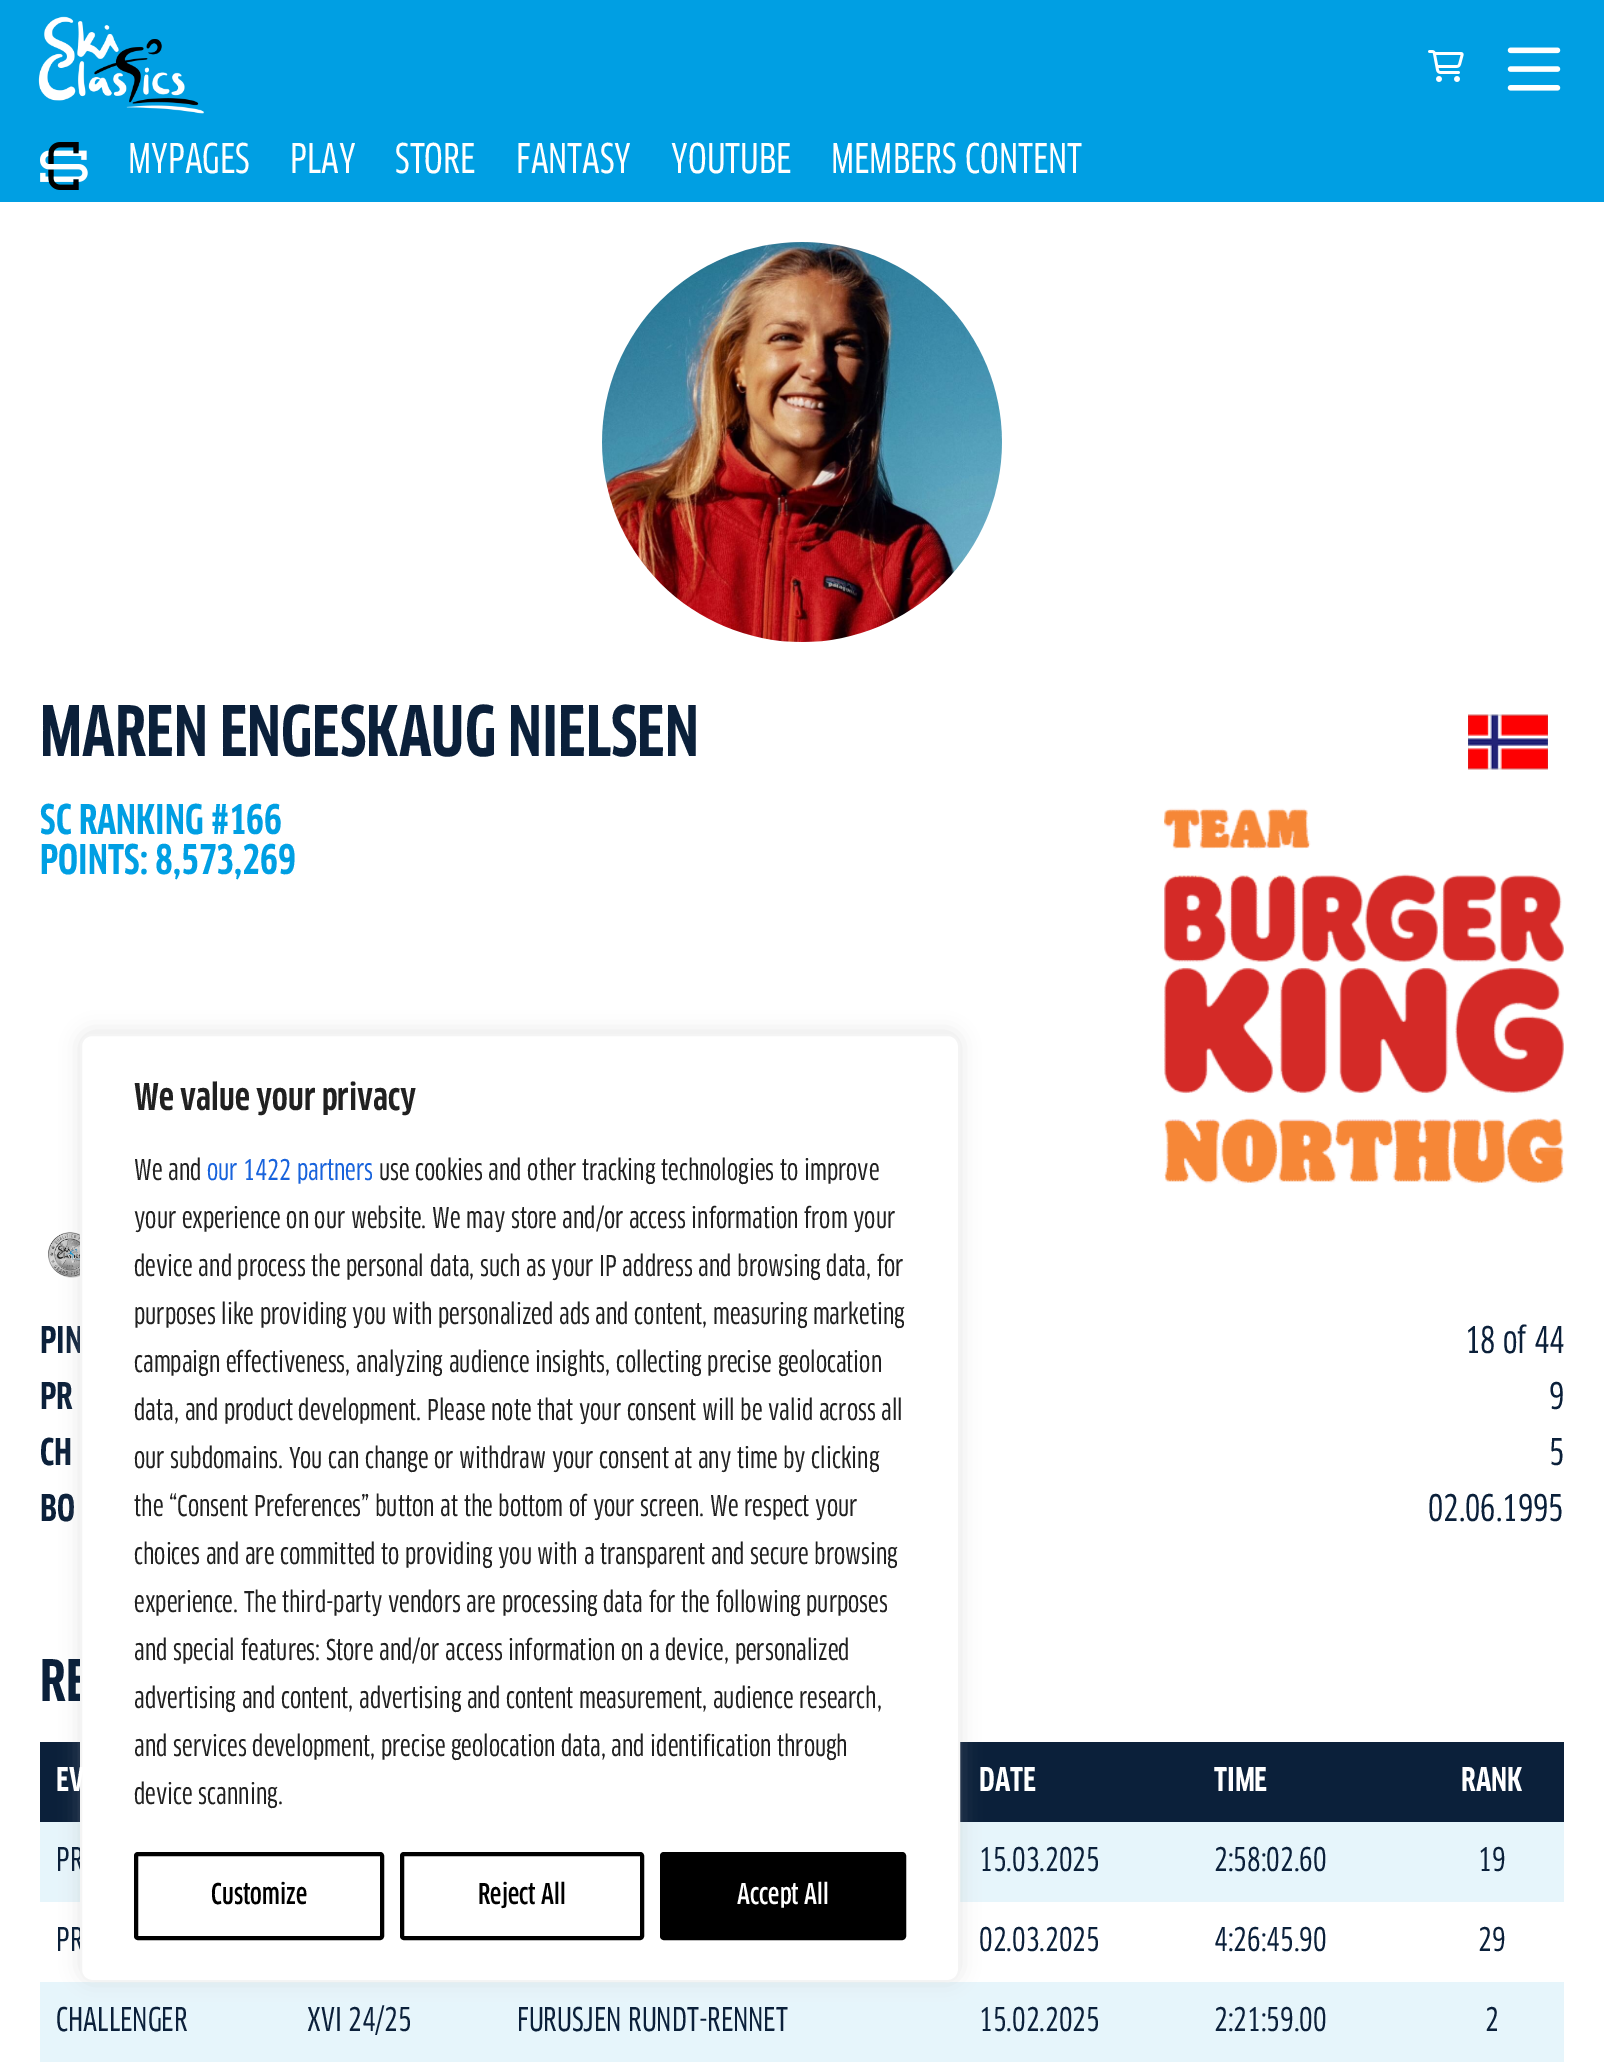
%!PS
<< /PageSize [1604 2062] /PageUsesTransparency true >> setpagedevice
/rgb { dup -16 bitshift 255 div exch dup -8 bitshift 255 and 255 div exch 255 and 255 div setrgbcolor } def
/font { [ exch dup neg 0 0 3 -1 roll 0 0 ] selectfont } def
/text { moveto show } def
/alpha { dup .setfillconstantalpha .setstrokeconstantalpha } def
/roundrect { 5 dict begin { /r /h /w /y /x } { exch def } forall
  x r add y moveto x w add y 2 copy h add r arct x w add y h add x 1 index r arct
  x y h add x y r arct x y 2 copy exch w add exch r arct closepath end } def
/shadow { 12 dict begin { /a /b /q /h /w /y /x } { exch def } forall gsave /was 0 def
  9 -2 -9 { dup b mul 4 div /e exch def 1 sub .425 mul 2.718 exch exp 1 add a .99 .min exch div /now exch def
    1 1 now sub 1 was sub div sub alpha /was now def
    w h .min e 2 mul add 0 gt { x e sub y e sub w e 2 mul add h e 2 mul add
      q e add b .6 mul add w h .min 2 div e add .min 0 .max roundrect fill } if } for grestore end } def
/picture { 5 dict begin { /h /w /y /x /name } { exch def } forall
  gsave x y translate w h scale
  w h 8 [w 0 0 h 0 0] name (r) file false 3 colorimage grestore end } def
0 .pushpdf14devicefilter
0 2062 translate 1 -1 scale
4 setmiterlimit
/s1 { /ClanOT-Medium 40 font 16#FFFFFF rgb } def
/s2 { /ClanOT-Bold 68 font 16#0B203A rgb } def
/s3 { /ClanOT-Bold 40 font 16#009FE3 rgb } def
/s4 { /ClanOT-Bold 36 font 16#0B203A rgb } def
/s5 { /ClanOT-Medium 36 font 16#0B203A rgb } def
/s6 { /ClanOT-Bold 56 font 16#0B203A rgb } def
/s7 { /ClanOT-Medium 32 font 16#0B203A rgb } def
/s8 { /ClanOT-Bold 36 font 16#212121 rgb } def
/s9 { /ClanOT-Medium 28 font 16#212121 rgb } def
/s10 { /ClanOT-Medium 28 font 16#1863DC rgb } def
/s11 { /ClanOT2-Medium 28 font 16#000000 rgb } def
/s12 { /ClanOT2-Medium 28 font 16#FFFFFF rgb } def
/s13 { /ClanOT-Bold 32 font 16#FFFFFF rgb } def
16#FFFFFF rgb
0 0 1604 2062 rectfill
16#009FE3 rgb
0 0 1604 202 rectfill
(pic1.raw) 38 16 166 98 picture
(pic2.raw) 1428 50 36 32 picture
(pic3.raw) 1507 47 54 44 picture
(pic4.raw) 40 142 48 48 picture
s1
(MYPAGES) 128 173 text
(PLAY) 290 173 text
(STORE) 395 173 text
(FANTASY) 516 173 text
(YOUTUBE) 671 173 text
(MEMBERS CONTENT) 831 173 text
(pic5.raw) 602 242 400 400 picture
s2
(MAREN ENGESKAUG NIELSEN) 40 756 text
(pic6.raw) 1468 714 80 56 picture
s3
(SC RANKING #166) 40 834 text
(POINTS: 8,573,269) 40 874 text
(pic7.raw) 1164 808 400 377 picture
(pic8.raw) 48 1232 32 46 picture
s4
(PIN) 40 1353 text
s5
(18 of 44) 1465 1353 text
s4
(PR) 40 1409 text
s5
(9) 1549 1409 text
s4
(CH) 40 1465 text
s5
(5) 1549 1465 text
s4
(BO) 40 1521 text
s5
(02.06.1995) 1428 1521 text
40 1742 1524 80 rectfill
16#E6F5FB rgb
40 1822 1524 80 rectfill
40 1982 1524 80 rectfill
16#ACABAB rgb
80 1032 880 948 12 10 0.3 shadow
s6
(RE) 40 1701 text
s7
(PR) 56 1871 text
(PR) 56 1951 text
16#FFFFFF rgb
81 1035 878 946 11 roundrect gsave fill grestore
16#F4F4F4 rgb
2 setlinewidth
stroke
s8
(We value your privacy) 134 1110 text
s9
(We and) 134 1180 text
s10
(our 1422 partners) 207 1180 text
s9
(use cookies and other tracking technologies to improve) 379 1180 text
(your experience on our website. We may store and/or access information from your) 134 1228 text
(device and process the personal data, such as your IP address and browsing data, for) 134 1276 text
(purposes like providing you with personalized ads and content, measuring marketing) 134 1324 text
(campaign effectiveness, analyzing audience insights, collecting precise geolocation) 134 1372 text
(data, and product development. Please note that your consent will be valid across all) 134 1420 text
(our subdomains. You can change or withdraw your consent at any time by clicking) 134 1468 text
(the “Consent Preferences” button at the bottom of your screen. We respect your) 134 1516 text
(choices and are committed to providing you with a transparent and secure browsing) 134 1564 text
(experience. The third-party vendors are processing data for the following purposes) 134 1612 text
(and special features: Store and/or access information on a device, personalized) 134 1660 text
(advertising and content, advertising and content measurement, audience research,) 134 1708 text
(and services development, precise geolocation data, and identification through) 134 1756 text
(device scanning.) 134 1804 text
16#000000 rgb
4 setlinewidth
136 1854 246 84 2 roundrect stroke
s11
(Customize) 211 1904 text
402 1854 240 84 2 roundrect stroke
(Reject All) 478 1904 text
662 1854 242 84 2 roundrect gsave fill grestore
stroke
s12
(Accept All) 737 1904 text
s13
(EV) 56 1791 text
(DATE) 979 1791 text
(TIME) 1214 1791 text
(RANK) 1461 1791 text
s7
(15.03.2025) 979 1871 text
(2:58:02.60) 1214 1871 text
(19) 1478 1871 text
(02.03.2025) 979 1951 text
(4:26:45.90) 1214 1951 text
(29) 1478 1951 text
(CHALLENGER) 56 2031 text
(XVI 24/25) 307 2031 text
(FURUSJEN RUNDT-RENNET) 517 2031 text
(15.02.2025) 979 2031 text
(2:21:59.00) 1214 2031 text
(2) 1485 2031 text
.poppdf14devicefilter showpage
